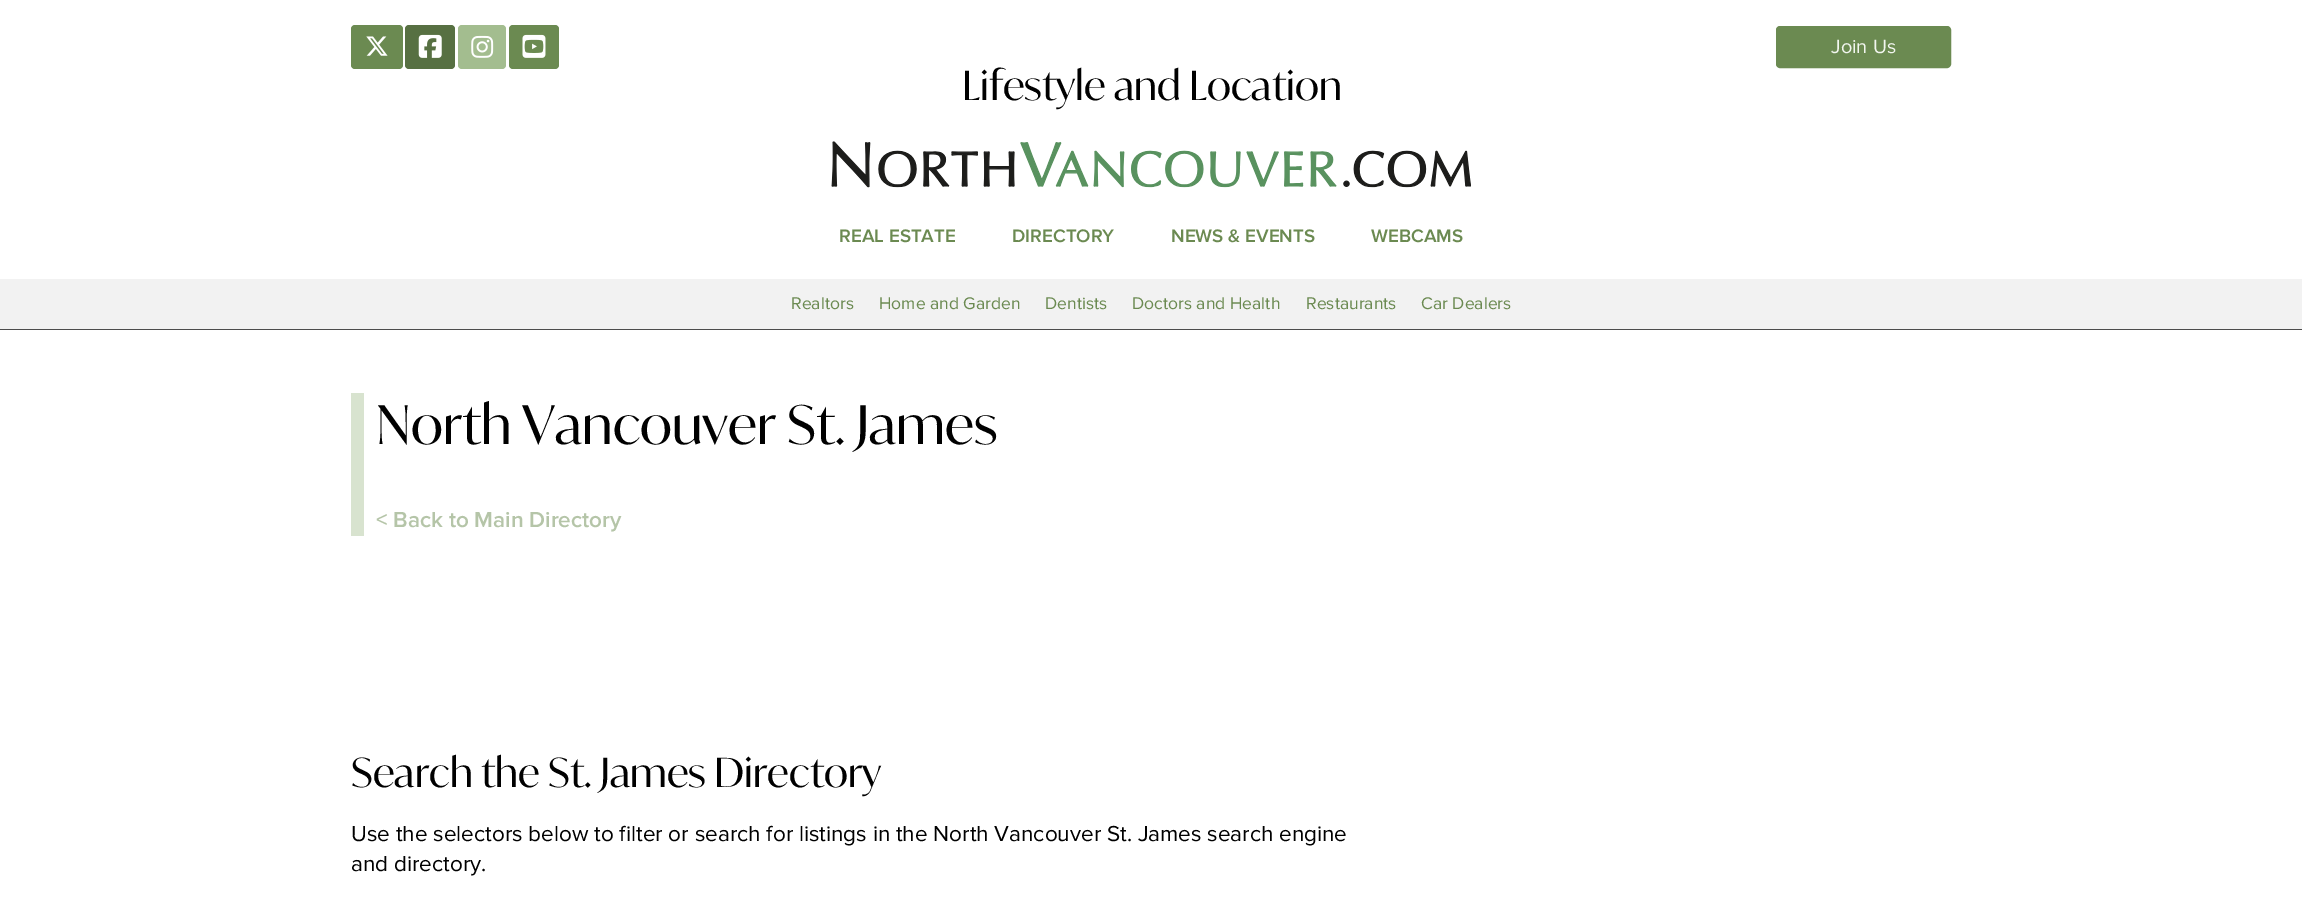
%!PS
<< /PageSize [2302 900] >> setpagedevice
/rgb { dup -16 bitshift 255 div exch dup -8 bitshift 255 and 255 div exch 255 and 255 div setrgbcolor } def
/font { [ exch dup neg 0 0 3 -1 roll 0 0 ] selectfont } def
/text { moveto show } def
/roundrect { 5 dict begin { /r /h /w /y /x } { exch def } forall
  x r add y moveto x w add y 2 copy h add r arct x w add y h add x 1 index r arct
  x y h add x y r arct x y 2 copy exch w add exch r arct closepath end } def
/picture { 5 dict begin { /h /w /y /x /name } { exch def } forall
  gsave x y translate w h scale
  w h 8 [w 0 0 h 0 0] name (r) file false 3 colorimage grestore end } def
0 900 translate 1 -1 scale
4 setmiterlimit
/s1 { /ProximaNova-Regular 20 font 16#F2F6EF rgb } def
/s2 { /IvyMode-Regular 40 font 16#000000 rgb } def
/s3 { /ProximaNova-SemiBold 18.75 font 16#6B8A51 rgb } def
/s4 { /ProximaNova-Regular 17.5 font 16#6B8A51 rgb } def
/s5 { /IvyMode-Regular 53.25 font 16#000000 rgb } def
/s6 { /ProximaNova-SemiBold 22.5 font 16#B5C5A8 rgb } def
/s7 { /ProximaNova-Regular 22.5 font 16#000000 rgb } def
16#FFFFFF rgb
0 0 2302 900 rectfill
16#6B8A51 rgb
351 25 52 44 4 roundrect fill
(pic1.raw) 366 36 22 20 picture
16#577042 rgb
405 25 50 44 4 roundrect fill
(pic2.raw) 418 34 24 24 picture
16#A3BD8F rgb
458 25 48 44 4 roundrect fill
(pic3.raw) 471 35 23 23 picture
16#6B8A51 rgb
509 25 50 44 4 roundrect fill
(pic4.raw) 522 34 24 24 picture
1777.5 27.5 172 39 2.5 roundrect gsave fill grestore
3 setlinewidth
stroke
s1
(Join Us) 1831 53 text
s2
(Lifestyle and Location) 962 100 text
(pic5.raw) 831 141 640 47 picture
s3
(REAL ESTATE) 839 242 text
(DIRECTORY) 1012 242 text
(NEWS & EVENTS) 1171 242 text
(WEBCAMS) 1371 242 text
16#F2F2F2 rgb
0 279 2302 50 rectfill
16#4C4C4C rgb
0 329 2302 1 rectfill
s4
(Realtors) 791 309 text
(Home and Garden) 879 309 text
(Dentists) 1045 309 text
(Doctors and Health) 1132 309 text
(Restaurants) 1306 309 text
(Car Dealers) 1421 309 text
16#D8E3CF rgb
351 393 13 143 rectfill
s5
(North Vancouver St. James) 376 444 text
s6
(< Back to Main Directory) 376 527 text
s2
(Search the St. James Directory) 351 787 text
s7
(Use the selectors below to filter or search for listings in the North Vancouver St. James search engine) 351 841 text
(and directory.) 351 871 text
showpage
